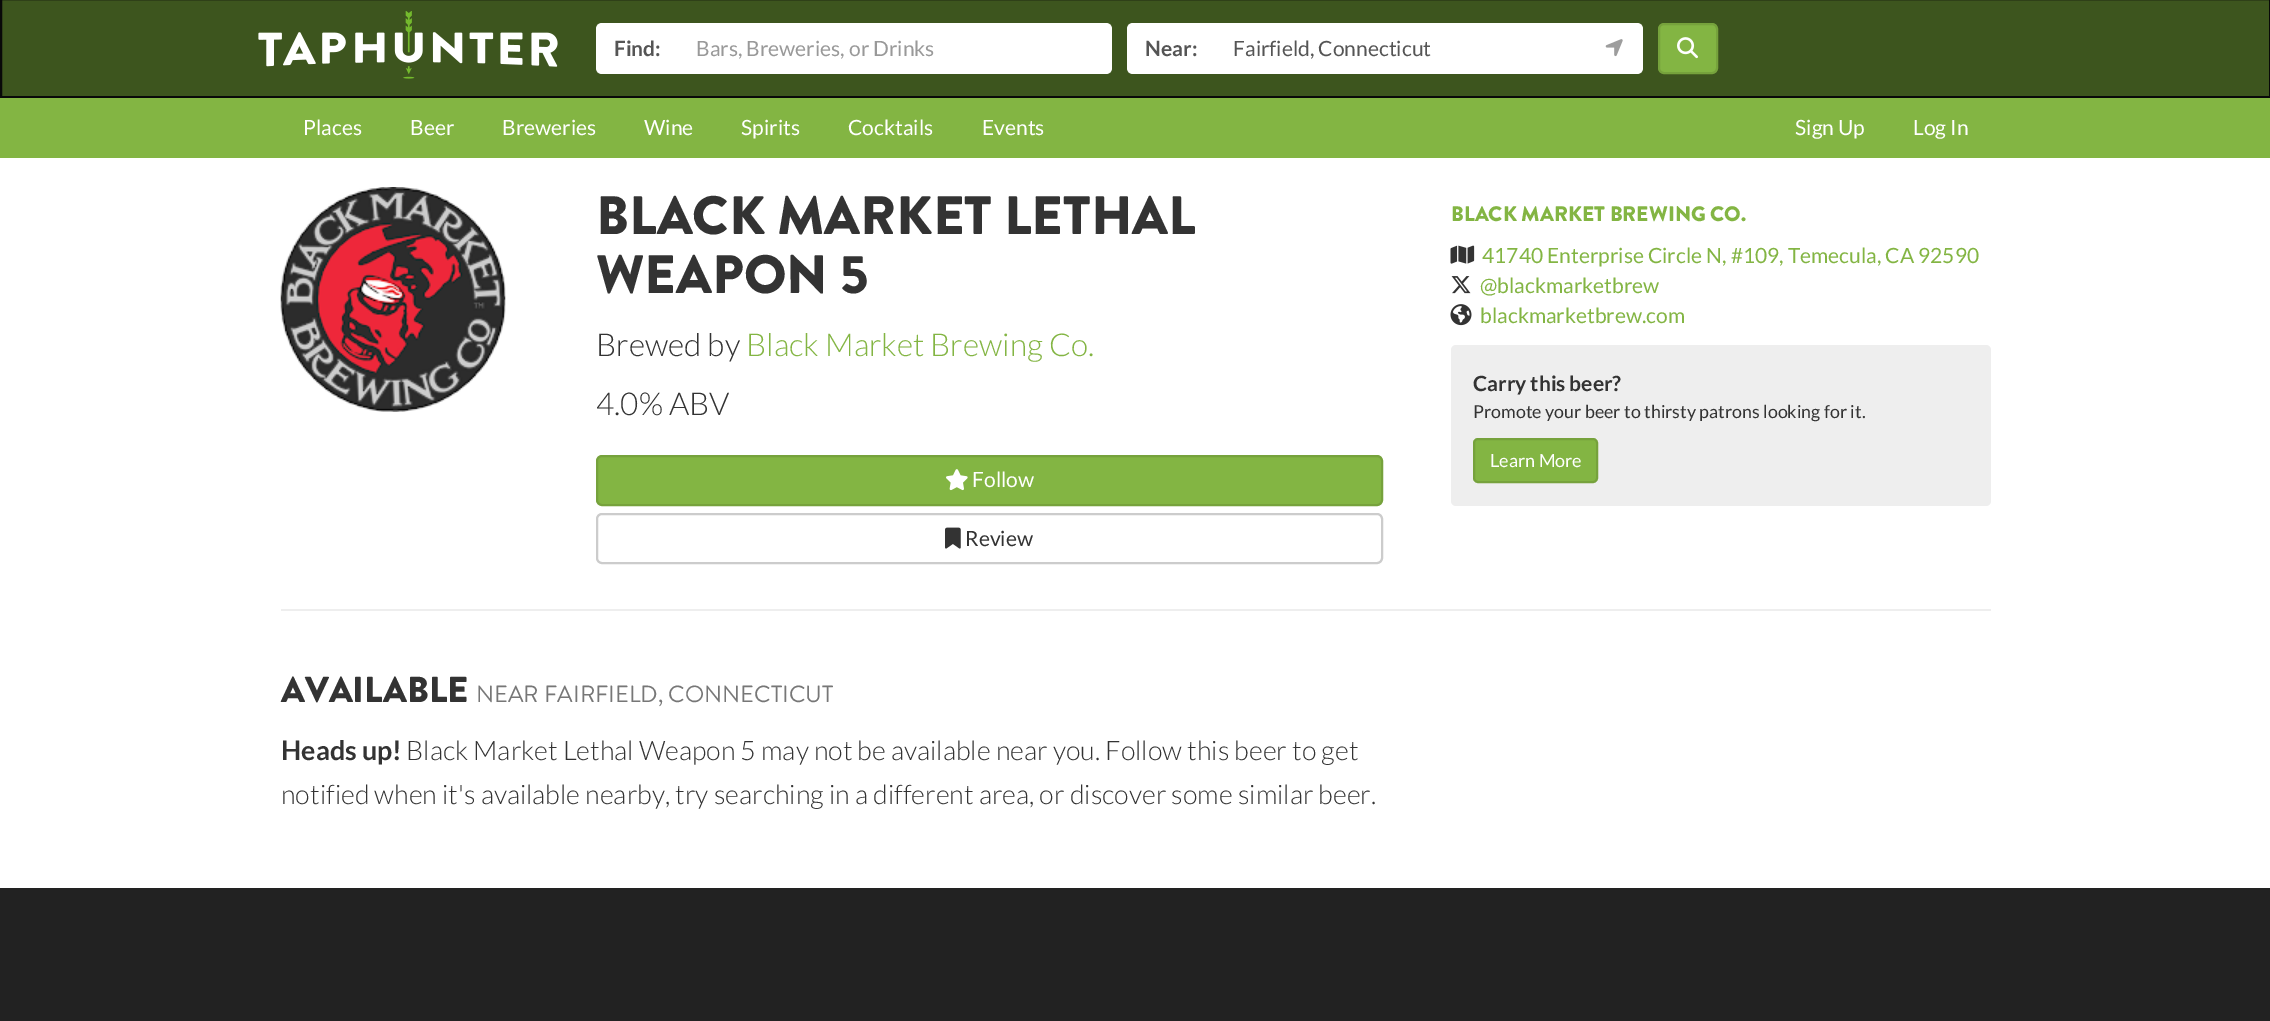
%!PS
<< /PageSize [2270 1021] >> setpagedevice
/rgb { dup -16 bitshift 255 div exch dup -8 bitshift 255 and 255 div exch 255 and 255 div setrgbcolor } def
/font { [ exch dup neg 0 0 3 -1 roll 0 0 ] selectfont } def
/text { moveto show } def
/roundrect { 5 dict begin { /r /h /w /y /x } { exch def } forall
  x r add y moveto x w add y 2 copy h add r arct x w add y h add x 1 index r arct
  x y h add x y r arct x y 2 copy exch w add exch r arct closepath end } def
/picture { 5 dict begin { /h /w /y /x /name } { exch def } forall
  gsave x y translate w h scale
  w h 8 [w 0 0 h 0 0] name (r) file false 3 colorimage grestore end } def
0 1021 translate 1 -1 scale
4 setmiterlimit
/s1 { /Lato-Bold 21 font 16#555555 rgb } def
/s2 { /Lato-Regular 21 font 16#999999 rgb } def
/s3 { /Lato-Regular 21 font 16#555555 rgb } def
/s4 { /Lato-Regular 21 font 16#FFFFFF rgb } def
/s5 { /BrandonGrotesque-Black 54 font 16#333333 rgb } def
/s6 { /Lato-Light 31.5 font 16#333333 rgb } def
/s7 { /Lato-Light 31.5 font 16#83B543 rgb } def
/s8 { /Lato-Regular 21 font 16#333333 rgb } def
/s9 { /BrandonGrotesque-Black 21 font 16#83B543 rgb } def
/s10 { /Lato-Regular 21 font 16#83B543 rgb } def
/s11 { /Lato-Bold 21 font 16#333333 rgb } def
/s12 { /Lato-Regular 17.85 font 16#333333 rgb } def
/s13 { /Lato-Regular 18 font 16#FFFFFF rgb } def
/s14 { /BrandonGrotesque-Black 36 font 16#333333 rgb } def
/s15 { /BrandonGrotesque-Regular 23.4 font 16#777777 rgb } def
/s16 { /Lato-Bold 26.8 font 16#333333 rgb } def
/s17 { /Lato-Light 26.8 font 16#333333 rgb } def
16#FFFFFF rgb
0 0 2270 1021 rectfill
16#3D551E rgb
1 -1 moveto 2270 -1 lineto 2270 97 lineto 1 97 lineto closepath gsave fill grestore
16#090909 rgb
2 setlinewidth
stroke
(pic1.raw) 258 11 300 68 picture
16#FFFFFF rgb
602 23 moveto 678 23 lineto 678 74 lineto 602 74 lineto 598.5 74 596 71.5 596 68 curveto 596 29 lineto 596 25.5 598.5 23 602 23 curveto closepath fill
s1
(Find:) 614 56 text
16#FFFFFF rgb
678 23 moveto 1106 23 lineto 1109.5 23 1112 25.5 1112 29 curveto 1112 68 lineto 1112 71.5 1109.5 74 1106 74 curveto 678 74 lineto closepath fill
s2
(Bars, Breweries, or Drinks) 696 56 text
16#FFFFFF rgb
1133 23 moveto 1215 23 lineto 1215 74 lineto 1133 74 lineto 1129.5 74 1127 71.5 1127 68 curveto 1127 29 lineto 1127 25.5 1129.5 23 1133 23 curveto closepath fill
s1
(Near:) 1145 56 text
16#FFFFFF rgb
1215 23 371 51 rectfill
s3
(Fairfield, Connecticut) 1233 56 text
16#FFFFFF rgb
1586 23 moveto 1637 23 lineto 1640.5 23 1643 25.5 1643 29 curveto 1643 68 lineto 1643 71.5 1640.5 74 1637 74 curveto 1586 74 lineto closepath fill
(pic2.raw) 1605 39 18 18 picture
16#83B543 rgb
1659 24 58 49 5 roundrect gsave fill grestore
16#76A23C rgb
stroke
(pic3.raw) 1677 37 21 22 picture
16#83B543 rgb
0 98 2270 60 rectfill
s4
(Places) 303 135 text
(Beer) 410 135 text
(Breweries) 502 135 text
(Wine) 644 135 text
(Spirits) 741 135 text
(Cocktails) 848 135 text
(Events) 982 135 text
(Sign Up) 1795 135 text
(Log In) 1913 135 text
(pic4.raw) 280 187 226 225 picture
s5
(BLACK MARKET LETHAL) 596 234 text
(WEAPON 5) 596 293 text
s6
(Brewed by) 596 356 text
s7
(Black Market Brewing Co.) 746 356 text
s6
(4.0% ABV) 596 415 text
16#83B543 rgb
597 456 785 49 5 roundrect gsave fill grestore
16#76A23C rgb
stroke
(pic5.raw) 946 469 22 22 picture
s4
(Follow) 972 487 text
16#CCCCCC rgb
597 514 785 49 5 roundrect stroke
(pic6.raw) 945 527 16 22 picture
s8
(Review) 965 546 text
s9
(BLACK MARKET BREWING CO.) 1451 221 text
(pic7.raw) 1450 245 25 19 picture
s10
(41740 Enterprise Circle N, #109, Temecula, CA 92590) 1482 263 text
(pic8.raw) 1451 276 20 18 picture
(@blackmarketbrew) 1480 293 text
(pic9.raw) 1450 304 22 22 picture
(blackmarketbrew.com) 1480 323 text
16#EEEEEE rgb
1451 345 540 161 5 roundrect fill
s11
(Carry this beer?) 1473 391 text
s12
(Promote your beer to thirsty patrons looking for it.) 1473 418 text
16#83B543 rgb
1474 439 123 43 4 roundrect gsave fill grestore
16#76A23C rgb
stroke
s13
(Learn More) 1490 467 text
16#EEEEEE rgb
281 609 1710 2 rectfill
s14
(AVAILABLE) 281 702 text
s15
(NEAR FAIRFIELD, CONNECTICUT) 476 702 text
s16
(Heads up!) 281 760 text
s17
(Black Market Lethal Weapon 5 may not be available near you. Follow this beer to get) 406 760 text
(notified when it's available nearby, try searching in a different area, or discover some similar beer.) 281 804 text
16#222222 rgb
0 888 2270 133 rectfill
showpage
